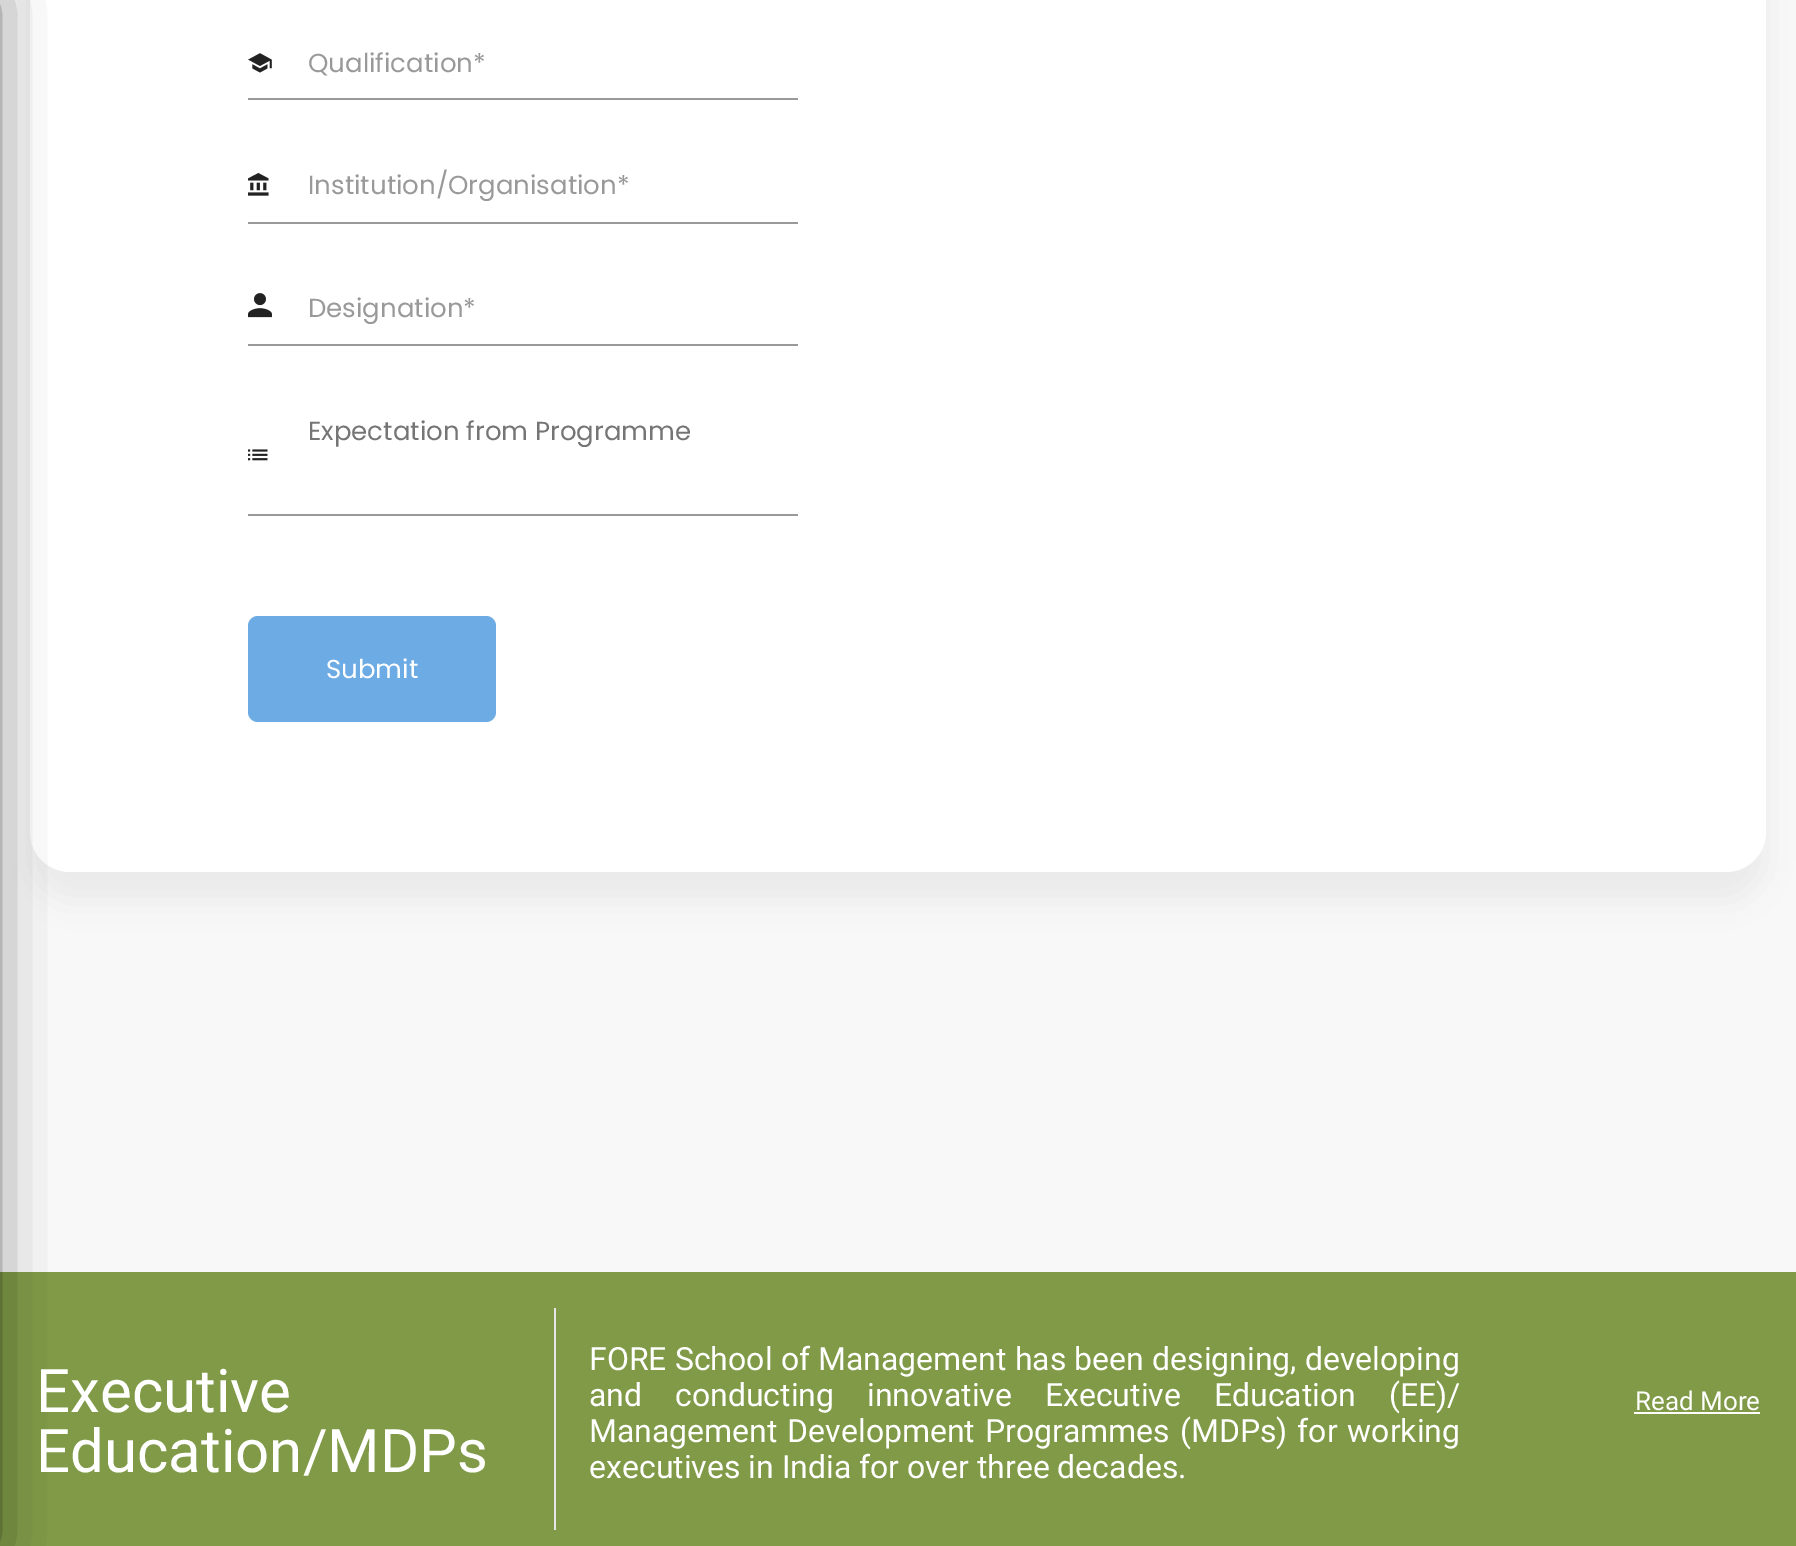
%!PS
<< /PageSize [1796 1546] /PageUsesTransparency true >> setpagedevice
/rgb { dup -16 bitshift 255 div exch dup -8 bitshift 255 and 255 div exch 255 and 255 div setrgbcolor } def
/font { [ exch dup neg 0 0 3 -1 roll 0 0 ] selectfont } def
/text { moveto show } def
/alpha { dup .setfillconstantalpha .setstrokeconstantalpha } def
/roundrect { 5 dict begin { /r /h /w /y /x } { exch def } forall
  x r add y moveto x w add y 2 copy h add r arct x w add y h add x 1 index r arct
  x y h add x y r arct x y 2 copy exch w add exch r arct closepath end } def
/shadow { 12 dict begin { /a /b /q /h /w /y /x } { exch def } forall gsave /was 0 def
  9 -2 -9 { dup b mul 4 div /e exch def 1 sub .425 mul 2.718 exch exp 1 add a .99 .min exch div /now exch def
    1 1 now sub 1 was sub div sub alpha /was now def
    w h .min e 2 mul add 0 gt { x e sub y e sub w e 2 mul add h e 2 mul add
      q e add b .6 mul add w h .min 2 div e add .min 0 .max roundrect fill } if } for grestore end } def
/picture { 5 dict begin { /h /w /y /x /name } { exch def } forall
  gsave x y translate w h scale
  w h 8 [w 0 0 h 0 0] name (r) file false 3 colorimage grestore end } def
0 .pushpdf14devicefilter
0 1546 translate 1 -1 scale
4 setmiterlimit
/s1 { /Poppins-Regular 26 font 16#999999 rgb } def
/s2 { /Poppins-Regular 26 font 16#757575 rgb } def
/s3 { /Poppins-Regular 26 font 16#FFFFFF rgb } def
/s4 { /Roboto-Regular 60 font 16#FFFFFF rgb } def
/s5 { /Roboto-Regular 32 font 16#FFFFFF rgb } def
/s6 { /Roboto-Regular 26 font 16#FFFFFF rgb } def
16#F8F8F8 rgb
0 0 1796 1546 rectfill
16#000000 rgb
30 -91 1736 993 40 17 0.05 shadow
16#FFFFFF rgb
30 -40 1736 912 40 roundrect fill
16#809A48 rgb
0 1272 1796 274 rectfill
16#000000 rgb
-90 0 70 1546 0 30 0.9 shadow
(pic1.raw) 248 53 24 20 picture
16#999999 rgb
248 98 550 2 rectfill
s1
(Qualification*) 308 72 text
(pic2.raw) 248 173 21 23 picture
248 222 550 2 rectfill
(Institution/Organisation*) 308 194 text
(pic3.raw) 248 293 24 25 picture
248 344 550 2 rectfill
(Designation*) 308 317 text
248 514 550 2 rectfill
s2
(Expectation from Programme) 308 440 text
(pic4.raw) 248 449 20 12 picture
16#6DABE4 rgb
248 616 248 106 10 roundrect fill
s3
(Submit) 326 678 text
s4
(Executive) 36 1412 text
(Education/MDPs) 36 1472 text
16#E6E6E6 rgb
554 1308 2 222 rectfill
/Roboto-Regular 32 font
16#FFFFFF rgb
589 1370 moveto 0.25 0 32 (FORE School of Management has been designing, developing) widthshow
589 1406 moveto 25 0 32 (and conducting innovative Executive Education \(EE\)/) widthshow
589 1442 moveto 2 0 32 (Management Development Programmes \(MDPs\) for working) widthshow
(executives in India for over three decades.) 589 1478 text
s6
(Read More) 1635 1410 text
1634 1412 126 2 rectfill
.poppdf14devicefilter showpage
